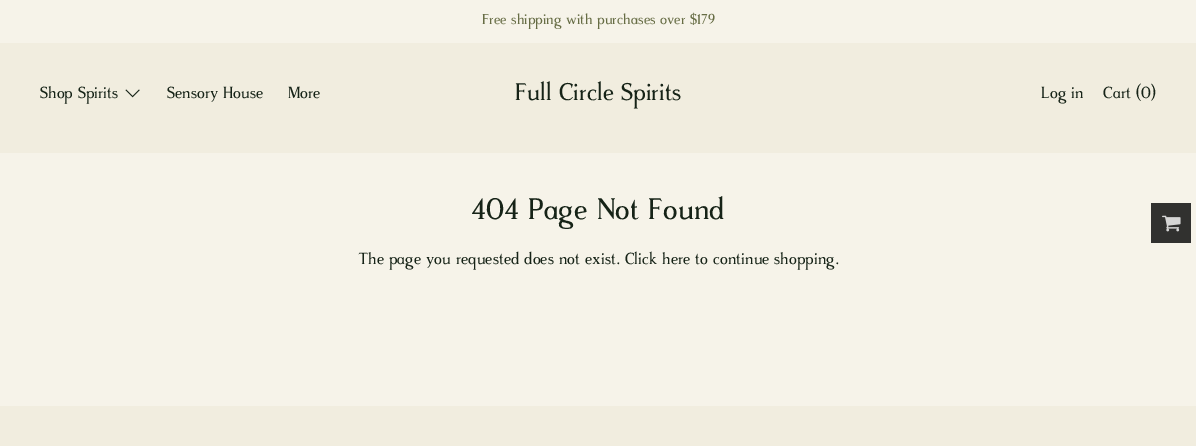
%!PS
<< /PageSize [1196 446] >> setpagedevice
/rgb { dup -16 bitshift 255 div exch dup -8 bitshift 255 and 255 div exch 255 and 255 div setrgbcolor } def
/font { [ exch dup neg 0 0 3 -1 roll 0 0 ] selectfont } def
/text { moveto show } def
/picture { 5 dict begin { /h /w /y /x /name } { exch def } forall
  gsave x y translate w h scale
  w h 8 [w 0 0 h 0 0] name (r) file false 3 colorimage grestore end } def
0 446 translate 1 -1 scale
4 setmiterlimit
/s1 { /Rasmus-Regular 14.4 font 16#676D45 rgb } def
/s2 { /Rasmus-Regular 16 font 16#162317 rgb } def
/s3 { /Rasmus-Regular 24 font 16#162317 rgb } def
/s4 { /Rasmus-Regular 29.5 font 16#162317 rgb } def
16#F6F3E9 rgb
0 0 1196 446 rectfill
16#F1EDDF rgb
0 43 1196 110 rectfill
s1
(Free shipping with purchases over $179) 482 24 text
s2
(Shop Spirits) 40 98 text
(pic1.raw) 125 89 15 9 picture
(Sensory House) 167 98 text
(More) 288 98 text
s3
(Full Circle Spirits) 515 100 text
s2
(Log in) 1041 98 text
(Cart \(0\)) 1103 98 text
s4
(404 Page Not Found) 471 219 text
s2
(The page you requested does not exist. Click here to continue shopping.) 358 264 text
16#31312F rgb
1151 203 40 40 rectfill
(pic2.raw) 1162 215 19 17 picture
16#F1EDDF rgb
0 406 1196 40 rectfill
showpage
